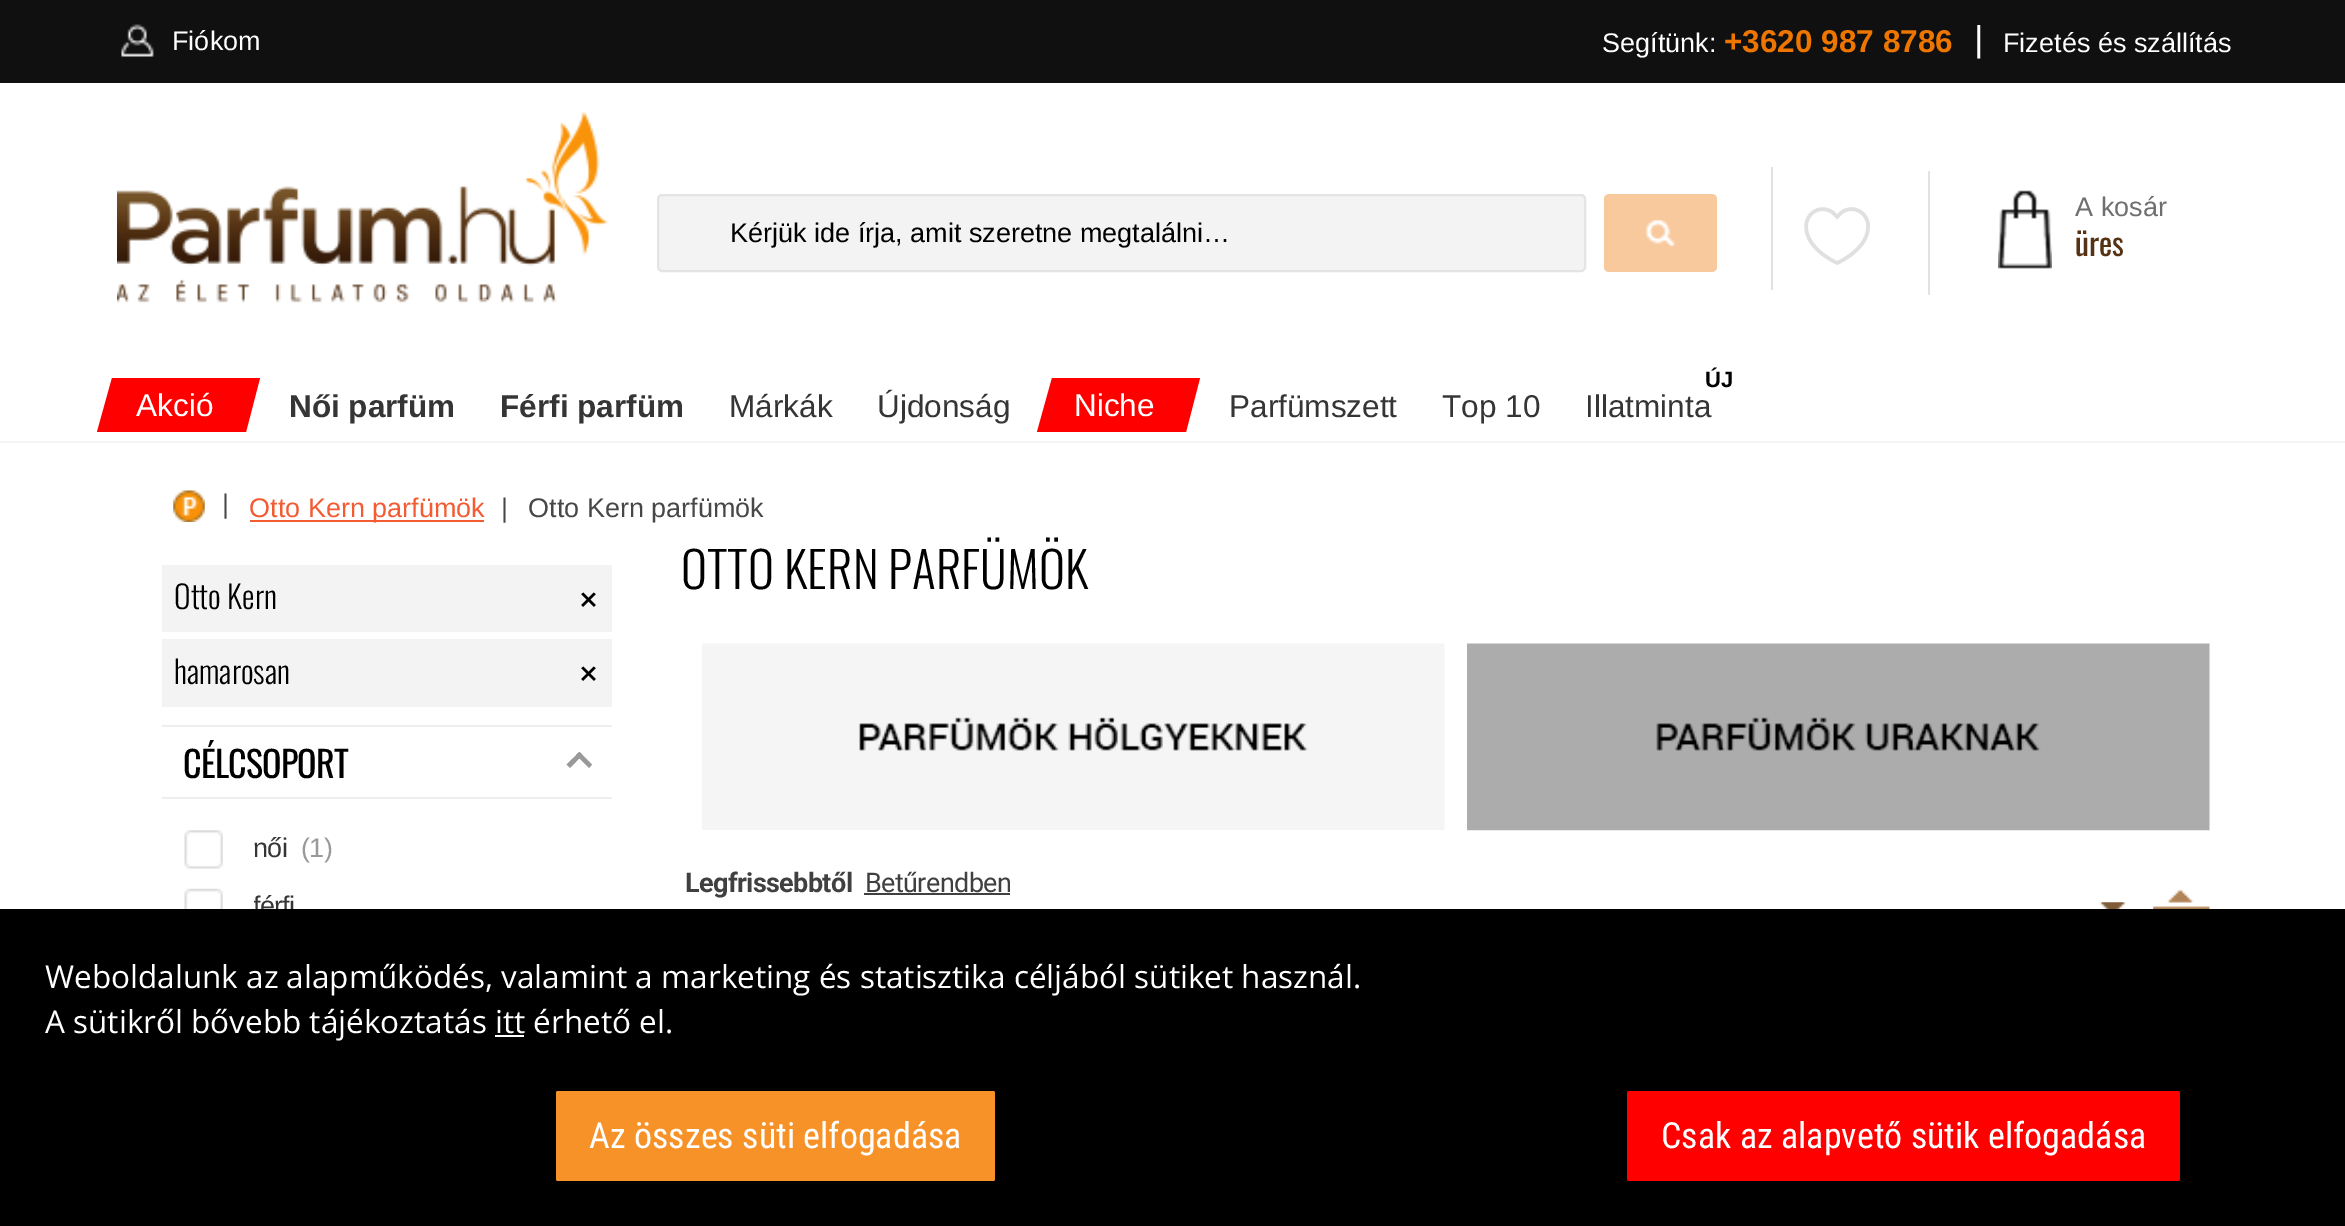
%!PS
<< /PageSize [2345 1226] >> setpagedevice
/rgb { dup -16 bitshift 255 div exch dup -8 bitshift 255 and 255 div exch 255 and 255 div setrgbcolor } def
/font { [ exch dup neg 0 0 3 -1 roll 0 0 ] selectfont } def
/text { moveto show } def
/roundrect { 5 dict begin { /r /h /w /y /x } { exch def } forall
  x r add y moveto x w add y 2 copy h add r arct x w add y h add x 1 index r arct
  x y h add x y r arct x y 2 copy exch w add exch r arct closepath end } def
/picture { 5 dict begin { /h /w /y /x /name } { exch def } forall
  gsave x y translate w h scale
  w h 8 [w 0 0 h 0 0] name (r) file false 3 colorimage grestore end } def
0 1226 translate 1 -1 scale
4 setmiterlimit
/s1 { /Arimo-Regular 27 font 16#FFFFFF rgb } def
/s2 { /Arimo-Bold 31.5 font 16#EE7600 rgb } def
/s3 { /Arimo-Regular 36 font 16#FFFFFF rgb } def
/s4 { /Arimo-Regular 27 font 16#000000 rgb } def
/s5 { /Arimo-Regular 27 font 16#6F6F6F rgb } def
/s6 { /Oswald-Regular 31.5 font 16#553213 rgb } def
/s7 { /Arimo-Regular 31.5 font 16#FFFFFF rgb } def
/s8 { /Arimo-Bold 31.5 font 16#353535 rgb } def
/s9 { /Arimo-Regular 31.5 font 16#353535 rgb } def
/s10 { /Arimo-Bold 22 font 16#000000 rgb } def
/s11 { /Arimo-Regular 27 font 16#474747 rgb } def
/s12 { /Arimo-Regular 27 font 16#F35B33 rgb } def
/s13 { /Oswald-Light 31.5 font 16#000000 rgb } def
/s14 { /Oswald-Light 54 font 16#000000 rgb } def
/s15 { /Oswald-Light 49.5 font 16#000000 rgb } def
/s16 { /OpenSans-Regular 31.5 font 16#FFFFFF rgb } def
/s17 { /RobotoCondensed-Regular 36 font 16#FFFFFF rgb } def
16#FFFFFF rgb
0 0 2345 1226 rectfill
16#101010 rgb
0 0 2345 83 rectfill
(pic1.raw) 121 24 33 33 picture
s1
(Fiókom) 172 50 text
(Segítünk:) 1602 52 text
s2
(+3620 987 8786) 1724 52 text
s3
(|) 1974 51 text
s1
(Fizetés és szállítás) 2003 52 text
(pic2.raw) 117 112 491 191 picture
16#F4F3F3 rgb
658 195 927 76 4 roundrect gsave fill grestore
16#E4E4E4 rgb
2 setlinewidth
stroke
s4
(Kérjük ide írja, amit szeretne megtalálni…) 730 242 text
16#F9C99E rgb
1604 194 113 78 5 roundrect fill
(pic3.raw) 1645 218 30 30 picture
16#E2E2E2 rgb
1771 167 2 123 rectfill
(pic4.raw) 1804 207 66 58 picture
1928 171 2 124 rectfill
(pic5.raw) 1998 190 54 79 picture
s5
(A kosár) 2075 216 text
s6
(üres) 2075 256 text
16#FF0000 rgb
112 378 moveto 260 378 lineto 246 432 lineto 97 432 lineto closepath fill
s7
(Akció) 136 416 text
s8
(Női parfüm) 289 417 text
(Férfi parfüm) 500 417 text
s9
(Márkák) 729 417 text
(Újdonság) 877 417 text
16#FF0000 rgb
1052 378 moveto 1200 378 lineto 1186 432 lineto 1037 432 lineto closepath fill
s7
(Niche) 1074 416 text
s9
(Parfümszett) 1229 417 text
(Top 10) 1442 417 text
s10
(ÚJ) 1705 387 text
s9
(Illatminta) 1585 417 text
16#F5F5F5 rgb
0 441 2345 2 rectfill
(pic6.raw) 173 490 32 32 picture
s11
(|) 222 513 text
16#F35B33 rgb
250 520 234 2 rectfill
(Otto Kern parfümök) 249 517 text
s11
(|) 501 517 text
(Otto Kern parfümök) 528 517 text
16#F4F3F3 rgb
162 565 450 67 rectfill
s13
(Otto Kern) 174 609 text
s14
(×) 579 622 text
16#F4F3F3 rgb
162 639 450 68 rectfill
s13
(hamarosan) 174 684 text
s14
(×) 579 696 text
16#EEEEEE rgb
162 725 450 2 rectfill
162 797 450 2 rectfill
/Oswald-Regular 36 font
16#000000 rgb
183 778 moveto -0.75 0 (CÉLCSOPORT) ashow
16#999999 rgb
566.5 764.5 moveto 579.5 752 lineto 582.5 755 lineto 570 768 lineto closepath fill
576 755 moveto 579.5 752 lineto 592 764.5 lineto 589 768 lineto closepath fill
(pic7.raw) 184 830 39 39 picture
/Arimo-Regular 27 font
16#353535 rgb
253 857 moveto -0.75 0 (női) ashow
16#999999 rgb
301 857 moveto -0.75 0 (\(1\)) ashow
(pic8.raw) 184 888 39 21 picture
gsave
254 889 43 38 rectclip
16#353535 rgb
253 915 moveto -0.75 0 (férfi) ashow
grestore
s15
(OTTO KERN PARFÜMÖK) 681 589 text
(pic9.raw) 702 643 743 187 picture
(pic10.raw) 1467 643 743 188 picture
/Roboto-Bold 27 font
16#404040 rgb
685 892 moveto -0.6 0 (Legfrissebbtől) ashow
/Roboto-Regular 27 font
865 892 moveto -0.6 0 (Betűrendben) ashow
864 893 146 2 rectfill
(pic11.raw) 2099 902 28 7 picture
(pic12.raw) 2153 889 57 20 picture
16#000000 rgb
0 909 2345 317 rectfill
s16
(Weboldalunk az alapműködés, valamint a marketing és statisztika céljából sütiket használ.) 45 988 text
(A sütikről bővebb tájékoztatás itt érhető el.) 45 1033 text
495 1035 29 2 rectfill
16#F79228 rgb
556 1091 439 90 2 roundrect fill
s17
(Az összes süti elfogadása) 589 1148 text
16#FF0000 rgb
1627 1091 553 90 2 roundrect fill
s17
(Csak az alapvető sütik elfogadása) 1661 1148 text
showpage
